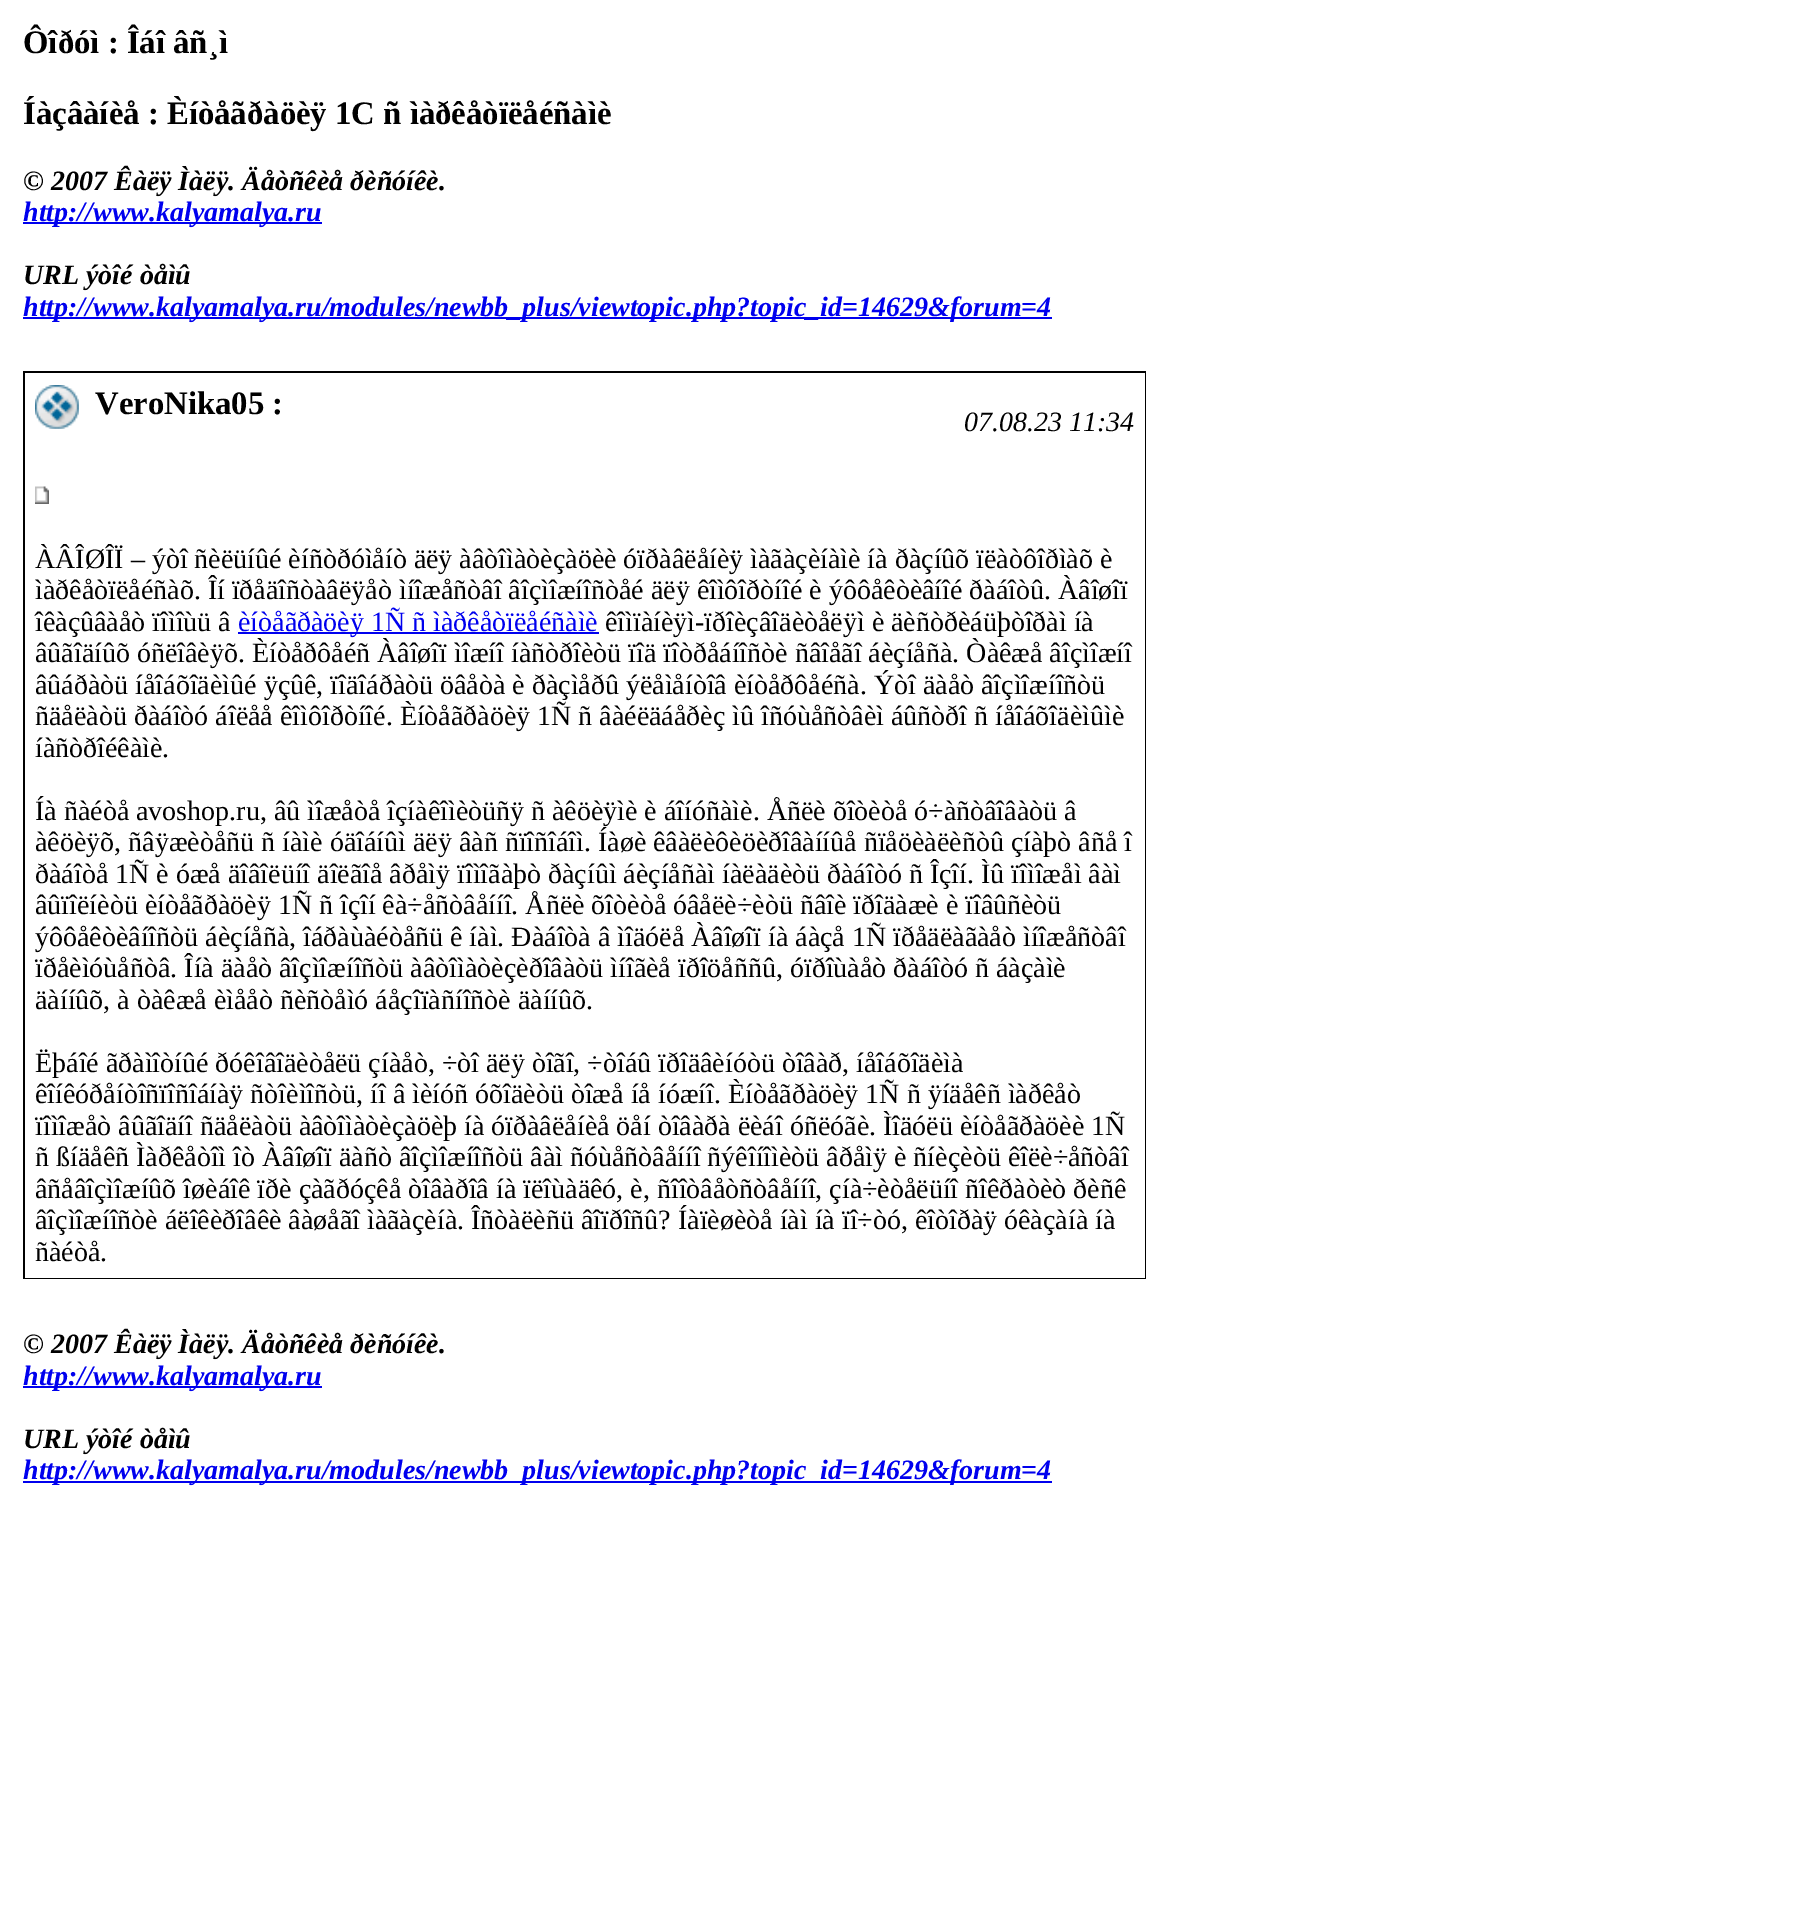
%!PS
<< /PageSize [1795 1914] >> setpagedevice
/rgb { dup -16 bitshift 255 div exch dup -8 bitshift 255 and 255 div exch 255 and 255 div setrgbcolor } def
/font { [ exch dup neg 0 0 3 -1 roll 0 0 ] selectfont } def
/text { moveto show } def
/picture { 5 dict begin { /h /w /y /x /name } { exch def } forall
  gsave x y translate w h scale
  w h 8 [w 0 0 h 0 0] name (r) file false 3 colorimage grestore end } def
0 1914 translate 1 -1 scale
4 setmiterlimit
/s1 { /LiberationSerif-Bold 32.75 font 16#000000 rgb } def
/s2 { /LiberationSerif-BoldItalic 28 font 16#000000 rgb } def
/s3 { /LiberationSerif-BoldItalic 28 font 16#0000EE rgb } def
/s4 { /LiberationSerif-Italic 28 font 16#000000 rgb } def
/s5 { /LiberationSerif-Regular 28 font 16#000000 rgb } def
/s6 { /LiberationSerif-Regular 28 font 16#0000EE rgb } def
16#FFFFFF rgb
0 0 1795 1914 rectfill
s1
(Ôîðóì : Îáî âñ¸ì) 23 53 text
(Íàçâàíèå : Èíòåãðàöèÿ 1C ñ ìàðêåòïëåéñàìè) 23 124 text
s2
(© 2007 Êàëÿ Ìàëÿ. Äåòñêèå ðèñóíêè.) 23 190 text
16#0000EE rgb
23 222 299 2 rectfill
(http://www.kalyamalya.ru) 23 221 text
s2
(URL ýòîé òåìû) 23 284 text
16#0000EE rgb
23 317 1029 2 rectfill
(http://www.kalyamalya.ru/modules/newbb_plus/viewtopic.php?topic_id=14629&forum=4) 23 316 text
16#000000 rgb
23 371 1123 908 rectfill
16#FFFFFF rgb
25 373 1120 905 rectfill
(pic1.raw) 35 385 44 44 picture
s1
(VeroNika05 :) 95 414 text
s4
(07.08.23 11:34) 964 431 text
(pic2.raw) 35 486 14 18 picture
s5
(ÀÂÎØÎÏ ‒ ýòî ñèëüíûé èíñòðóìåíò äëÿ àâòîìàòèçàöèè óïðàâëåíèÿ ìàãàçèíàìè íà ðàçíûõ ïëàòôîðìàõ è) 35 568 text
(ìàðêåòïëåéñàõ. Îí ïðåäîñòàâëÿåò ìíîæåñòâî âîçìîæíîñòåé äëÿ êîìôîðòíîé è ýôôåêòèâíîé ðàáîòû. Àâîøîï) 35 599 text
(îêàçûâàåò ïîìîùü â) 35 631 text
16#0000EE rgb
238 632 361 2 rectfill
(èíòåãðàöèÿ 1Ñ ñ ìàðêåòïëåéñàìè) 238 631 text
s5
(êîìïàíèÿì-ïðîèçâîäèòåëÿì è äèñòðèáüþòîðàì íà) 605 631 text
(âûãîäíûõ óñëîâèÿõ. Èíòåðôåéñ Àâîøîï ìîæíî íàñòðîèòü ïîä ïîòðåáíîñòè ñâîåãî áèçíåñà. Òàêæå âîçìîæíî) 35 662 text
(âûáðàòü íåîáõîäèìûé ÿçûê, ïîäîáðàòü öâåòà è ðàçìåðû ýëåìåíòîâ èíòåðôåéñà. Ýòî äàåò âîçìîæíîñòü) 35 694 text
(ñäåëàòü ðàáîòó áîëåå êîìôîðòíîé. Èíòåãðàöèÿ 1Ñ ñ âàéëäáåðèç ìû îñóùåñòâèì áûñòðî ñ íåîáõîäèìûìè) 35 725 text
(íàñòðîéêàìè.) 35 757 text
(Íà ñàéòå avoshop.ru, âû ìîæåòå îçíàêîìèòüñÿ ñ àêöèÿìè è áîíóñàìè. Åñëè õîòèòå ó÷àñòâîâàòü â) 35 820 text
(àêöèÿõ, ñâÿæèòåñü ñ íàìè óäîáíûì äëÿ âàñ ñïîñîáîì. Íàøè êâàëèôèöèðîâàííûå ñïåöèàëèñòû çíàþò âñå î) 35 851 text
(ðàáîòå 1Ñ è óæå äîâîëüíî äîëãîå âðåìÿ ïîìîãàþò ðàçíûì áèçíåñàì íàëàäèòü ðàáîòó ñ Îçîí. Ìû ïîìîæåì âàì) 35 883 text
(âûïîëíèòü èíòåãðàöèÿ 1Ñ ñ îçîí êà÷åñòâåííî. Åñëè õîòèòå óâåëè÷èòü ñâîè ïðîäàæè è ïîâûñèòü) 35 914 text
(ýôôåêòèâíîñòü áèçíåñà, îáðàùàéòåñü ê íàì. Ðàáîòà â ìîäóëå Àâîøîï íà áàçå 1Ñ ïðåäëàãàåò ìíîæåñòâî) 35 946 text
(ïðåèìóùåñòâ. Îíà äàåò âîçìîæíîñòü àâòîìàòèçèðîâàòü ìíîãèå ïðîöåññû, óïðîùàåò ðàáîòó ñ áàçàìè) 35 977 text
(äàííûõ, à òàêæå èìååò ñèñòåìó áåçîïàñíîñòè äàííûõ.) 35 1009 text
(Ëþáîé ãðàìîòíûé ðóêîâîäèòåëü çíàåò, ÷òî äëÿ òîãî, ÷òîáû ïðîäâèíóòü òîâàð, íåîáõîäèìà) 35 1072 text
(êîíêóðåíòîñïîñîáíàÿ ñòîèìîñòü, íî â ìèíóñ óõîäèòü òîæå íå íóæíî. Èíòåãðàöèÿ 1Ñ ñ ÿíäåêñ ìàðêåò) 35 1103 text
(ïîìîæåò âûãîäíî ñäåëàòü àâòîìàòèçàöèþ íà óïðàâëåíèå öåí òîâàðà ëèáî óñëóãè. Ìîäóëü èíòåãðàöèè 1Ñ) 35 1135 text
(ñ ßíäåêñ Ìàðêåòîì îò Àâîøîï äàñò âîçìîæíîñòü âàì ñóùåñòâåííî ñýêîíîìèòü âðåìÿ è ñíèçèòü êîëè÷åñòâî) 35 1166 text
(âñåâîçìîæíûõ îøèáîê ïðè çàãðóçêå òîâàðîâ íà ïëîùàäêó, è, ñîîòâåòñòâåííî, çíà÷èòåëüíî ñîêðàòèò ðèñê) 35 1198 text
(âîçìîæíîñòè áëîêèðîâêè âàøåãî ìàãàçèíà. Îñòàëèñü âîïðîñû? Íàïèøèòå íàì íà ïî÷òó, êîòîðàÿ óêàçàíà íà) 35 1229 text
(ñàéòå.) 35 1261 text
s2
(© 2007 Êàëÿ Ìàëÿ. Äåòñêèå ðèñóíêè.) 23 1353 text
16#0000EE rgb
23 1386 299 2 rectfill
(http://www.kalyamalya.ru) 23 1385 text
s2
(URL ýòîé òåìû) 23 1448 text
16#0000EE rgb
23 1481 1029 2 rectfill
(http://www.kalyamalya.ru/modules/newbb_plus/viewtopic.php?topic_id=14629&forum=4) 23 1479 text
showpage
